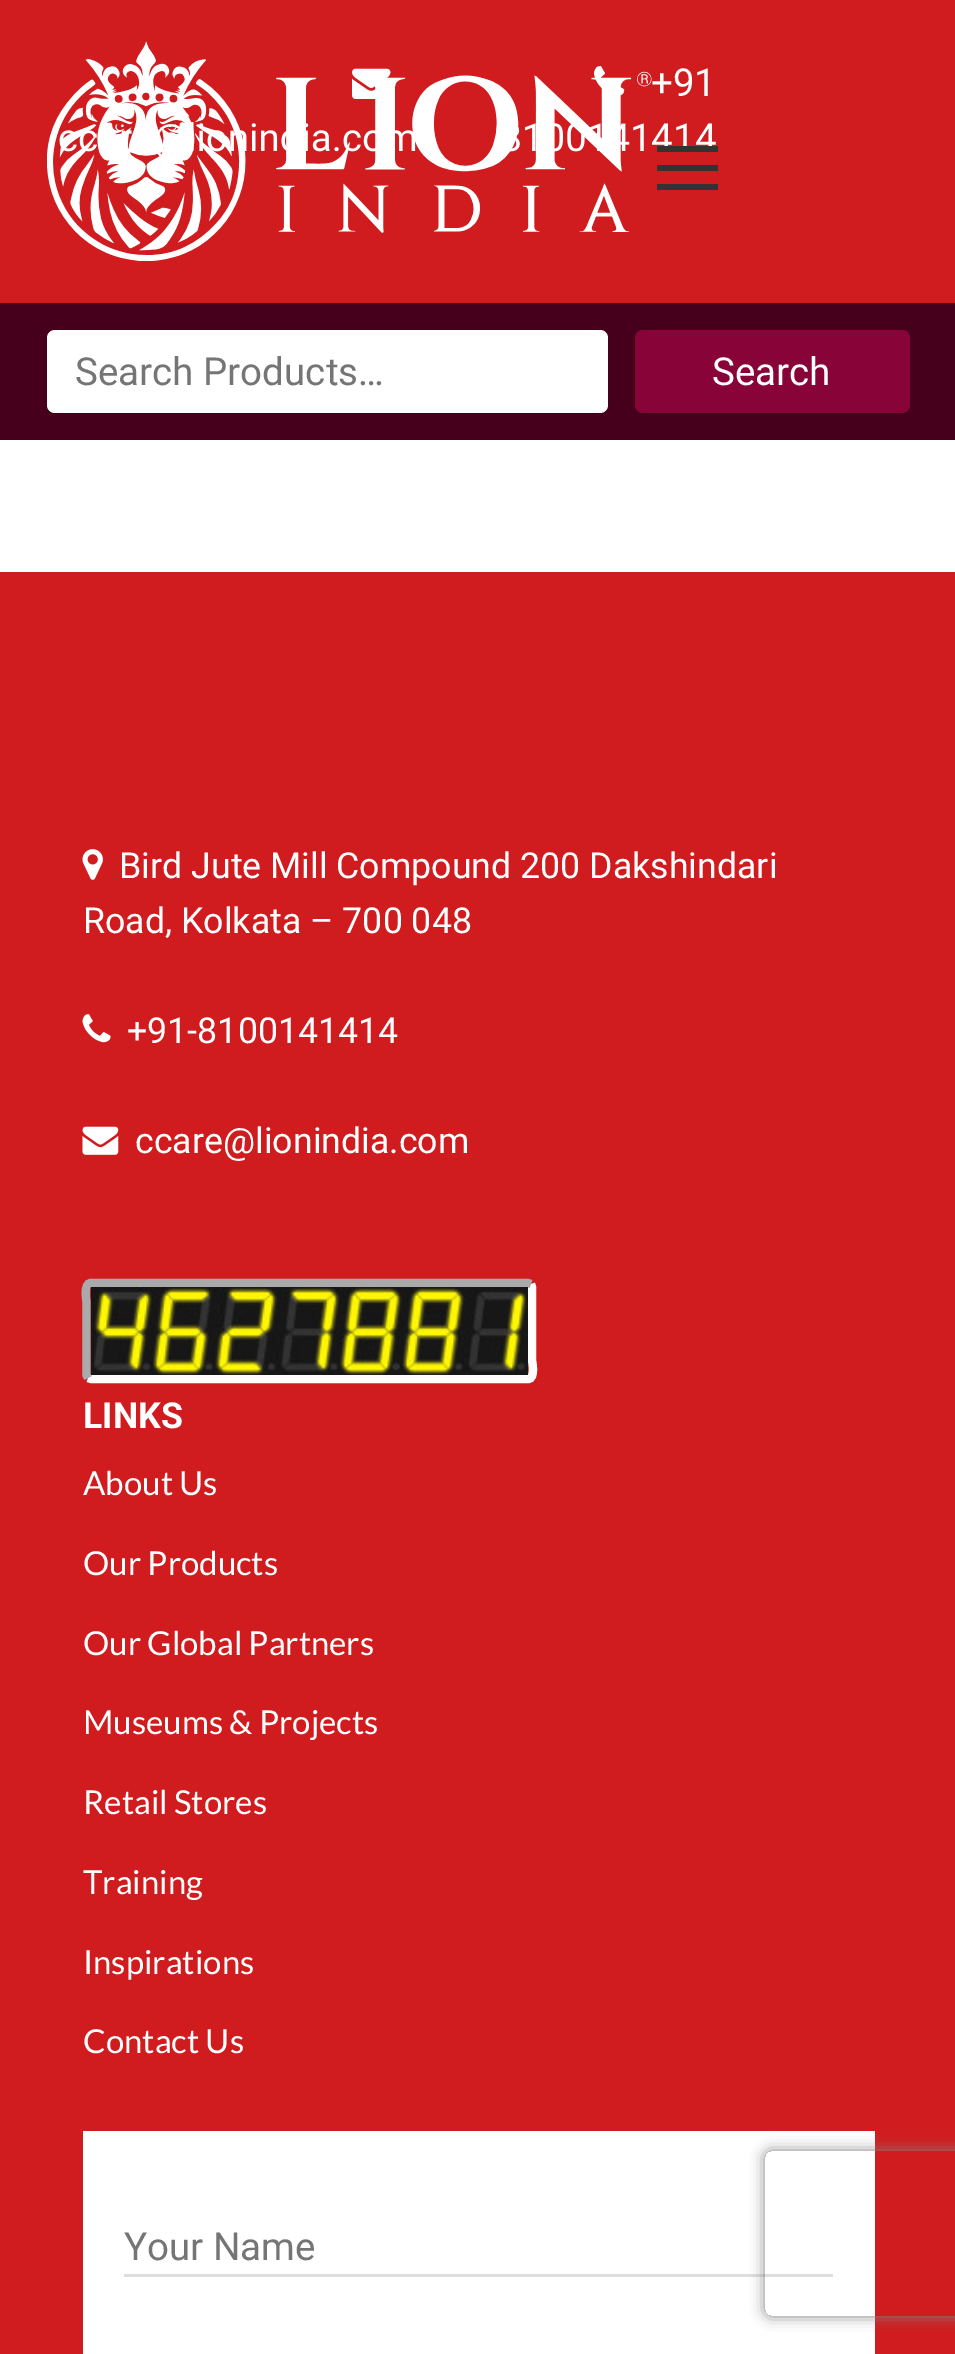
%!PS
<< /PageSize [955 2354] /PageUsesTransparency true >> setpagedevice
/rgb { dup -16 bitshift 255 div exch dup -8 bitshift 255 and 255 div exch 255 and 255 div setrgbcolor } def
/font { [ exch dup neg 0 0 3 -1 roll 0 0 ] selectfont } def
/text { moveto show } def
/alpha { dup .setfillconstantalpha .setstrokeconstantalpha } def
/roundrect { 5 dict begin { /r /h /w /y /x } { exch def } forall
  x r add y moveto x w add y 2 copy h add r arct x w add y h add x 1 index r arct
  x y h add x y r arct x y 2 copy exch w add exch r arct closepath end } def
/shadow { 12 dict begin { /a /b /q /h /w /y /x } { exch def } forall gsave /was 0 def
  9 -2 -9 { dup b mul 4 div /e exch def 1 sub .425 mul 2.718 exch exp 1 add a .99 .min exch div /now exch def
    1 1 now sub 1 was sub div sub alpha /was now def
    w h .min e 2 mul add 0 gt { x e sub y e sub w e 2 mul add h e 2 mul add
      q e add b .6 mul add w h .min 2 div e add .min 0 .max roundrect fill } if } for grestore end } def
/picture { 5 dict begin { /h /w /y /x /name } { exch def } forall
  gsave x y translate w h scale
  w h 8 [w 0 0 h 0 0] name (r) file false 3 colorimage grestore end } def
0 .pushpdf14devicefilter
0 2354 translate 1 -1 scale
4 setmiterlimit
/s1 { /Roboto-Regular 38.5 font 16#FFFFFF rgb } def
/s2 { /Roboto-Regular 38.5 font 16#757575 rgb } def
/s3 { /Roboto-Regular 35.75 font 16#FFFFFF rgb } def
/s4 { /Roboto-Bold 35.75 font 16#FFFFFF rgb } def
/s5 { /Lato-Regular 33 font 16#FFFFFF rgb } def
16#FFFFFF rgb
0 0 955 2354 rectfill
16#D01C1F rgb
0 0 955 303 rectfill
(pic2.raw) 352 68 39 31 picture
s1
(in) 249 151 text
(a.c) 311 151 text
(pic3.raw) 594 66 31 30 picture
(8100141414) 500 151 text
(pic1.raw) 47 41 605 220 picture
(+91) 651 96 text
16#333333 rgb
657 165 61 6 rectfill
657 146 61 6 rectfill
657 184 61 6 rectfill
16#47001C rgb
0 303 955 137 rectfill
16#FFFFFF rgb
47 330 561 83 8 roundrect fill
s2
(Search Products…) 75 385 text
16#880337 rgb
635 330 275 83 8 roundrect fill
s1
(Search) 712 385 text
16#D01C1F rgb
0 572 955 1782 rectfill
(pic4.raw) 82 849 21 31 picture
s3
(Bird Jute Mill Compound 200 Dakshindari) 119 878 text
(Road, Kolkata – 700 048) 83 933 text
(pic5.raw) 82 1014 29 29 picture
(+91-8100141414) 127 1043 text
(pic6.raw) 82 1126 37 29 picture
(ccare@lionindia.com) 135 1153 text
8.2 setlinewidth
531 1284 moveto 532 1287 lineto 532 1360.5 lineto 532 1360.5 536 1379 528 1379 curveto 91 1379 lineto 88 1378 lineto stroke
16#AAAAAA rgb
88 1378 moveto 86.5 1375 lineto 86.5 1301.5 lineto 86.5 1301.5 83 1283 91 1283 curveto 528 1283 lineto 531 1284 lineto stroke
(pic7.raw) 90 1287 438 88 picture
s4
(LINKS) 83 1428 text
s5
(About Us) 83 1495 text
(Our Products) 83 1575 text
(Our Global Partners) 83 1655 text
(Museums & Projects) 83 1734 text
(Retail Stores) 83 1814 text
(Training) 83 1894 text
(Inspirations) 83 1974 text
(Contact Us) 83 2053 text
83 2131 792 223 rectfill
16#DEDEDE rgb
124 2274 709 3 rectfill
s2
(Your Name) 124 2260 text
gsave
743 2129 moveto 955 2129 lineto 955 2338 lineto 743 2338 lineto closepath 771 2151 moveto 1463 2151 lineto 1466.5 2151 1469 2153.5 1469 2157 curveto 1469 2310 lineto 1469 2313.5 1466.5 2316 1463 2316 curveto 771 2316 lineto 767.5 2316 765 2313.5 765 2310 curveto 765 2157 lineto 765 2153.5 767.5 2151 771 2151 curveto closepath eoclip newpath
16#808080 rgb
765 2151 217 165 6 7 1 shadow
grestore
.poppdf14devicefilter showpage
